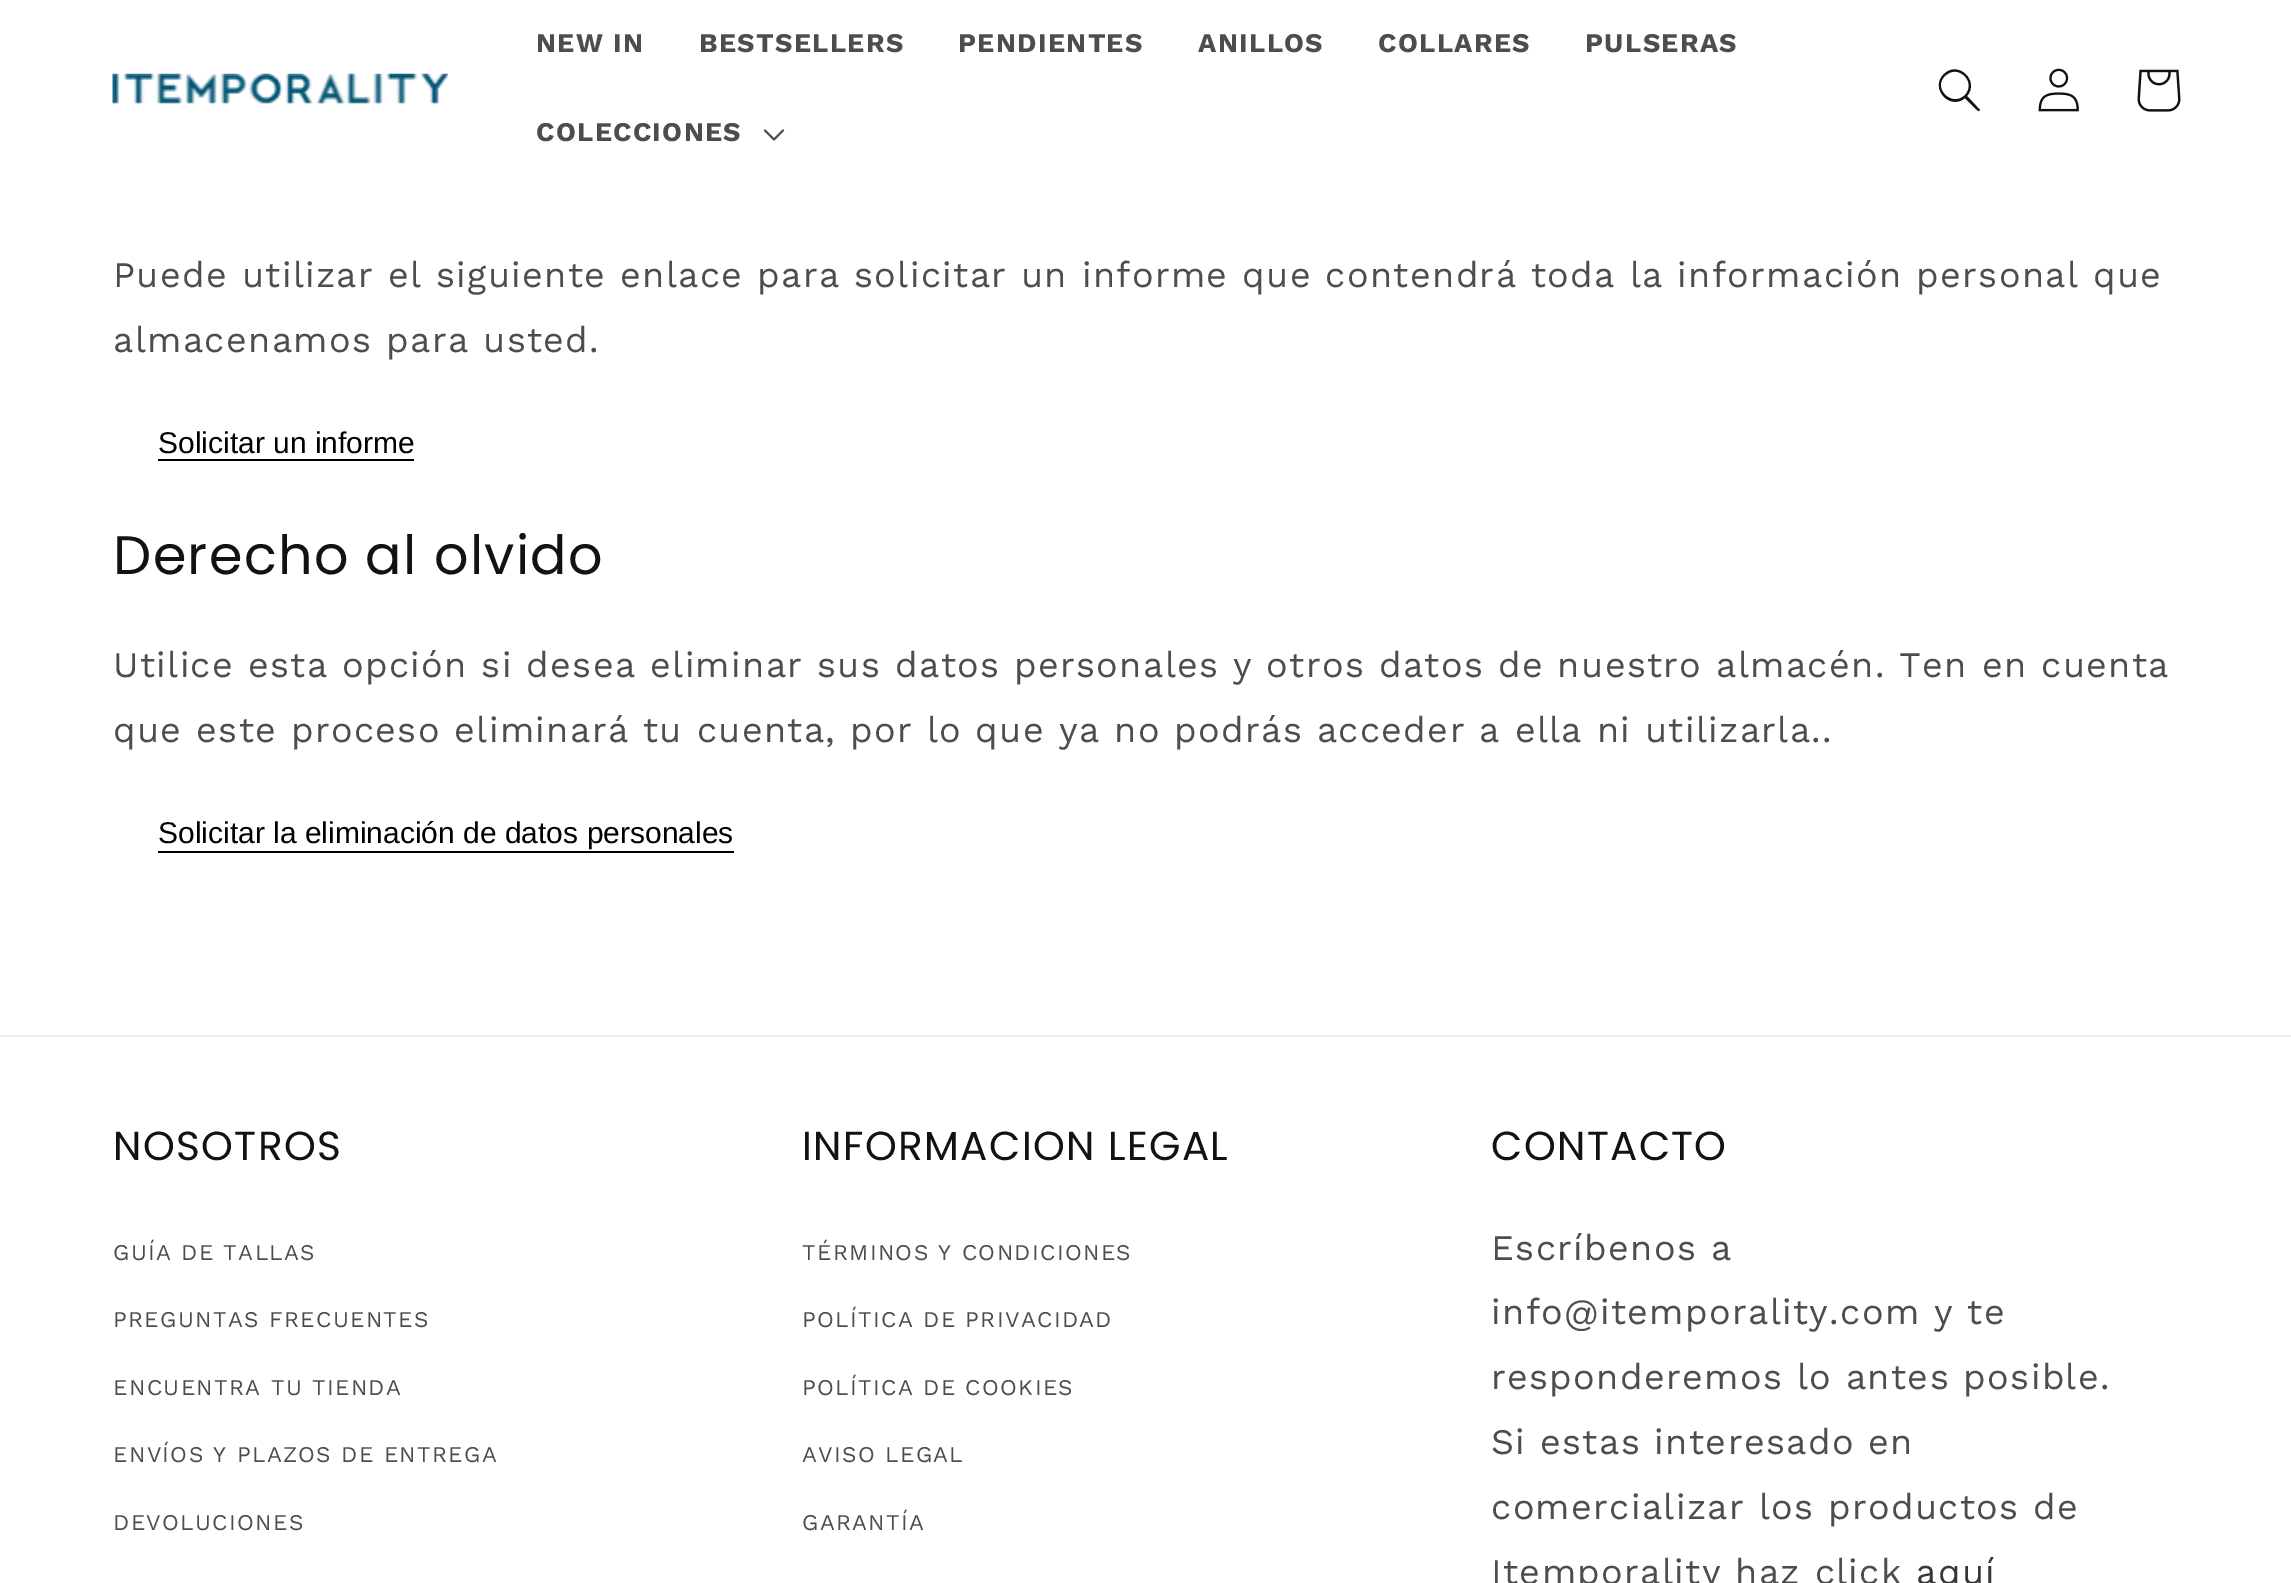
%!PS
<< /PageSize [2291 1583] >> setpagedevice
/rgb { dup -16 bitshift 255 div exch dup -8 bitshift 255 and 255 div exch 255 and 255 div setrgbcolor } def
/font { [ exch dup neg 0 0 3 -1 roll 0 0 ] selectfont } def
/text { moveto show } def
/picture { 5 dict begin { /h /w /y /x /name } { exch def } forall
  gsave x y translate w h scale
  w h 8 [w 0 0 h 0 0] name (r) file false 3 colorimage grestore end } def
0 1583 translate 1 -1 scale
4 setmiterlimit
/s1 { /LiberationSans-Regular 30 font 16#000000 rgb } def
16#FFFFFF rgb
0 0 2291 1583 rectfill
(pic1.raw) 112 73 336 31 picture
/WorkSans-Bold 27 font
16#4D4D4D rgb
536 52 moveto 1.35 0 (NEW IN) ashow
699 52 moveto 1.35 0 (BESTSELLERS) ashow
958 52 moveto 1.35 0 (PENDIENTES) ashow
1198 52 moveto 1.35 0 (ANILLOS) ashow
1378 52 moveto 1.35 0 (COLLARES) ashow
1585 52 moveto 1.35 0 (PULSERAS) ashow
536 141 moveto 1.35 0 (COLECCIONES) ashow
(pic2.raw) 763 129 22 12 picture
16#121212 rgb
1965 95 moveto 1952 108 1932 88 1945 76 curveto 1958 63 1977 82 1965 95 curveto closepath 1965 98 moveto 1950 111 1929 88 1944 74 curveto 1958 60 1980 81 1967 96 curveto 1980 110 lineto 1979 111 lineto 1978 112 1967 100 1965 98 curveto closepath eofill
(pic3.raw) 2038 68 41 44 picture
(pic4.raw) 2137 69 44 43 picture
/WorkSans-Regular 36 font
16#4D4D4D rgb
113 287 moveto 1.35 0 (Puede utilizar el siguiente enlace para solicitar un informe que contendrá toda la información personal que) ashow
113 352 moveto 1.35 0 (almacenamos para usted.) ashow
16#000000 rgb
158 459 256 2 rectfill
s1
(Solicitar un informe) 158 453 text
/Poppins-Regular 54 font
16#121212 rgb
113 574 moveto 1.35 0 (Derecho al olvido) ashow
/WorkSans-Regular 36 font
16#4D4D4D rgb
113 677 moveto 1.35 0 (Utilice esta opción si desea eliminar sus datos personales y otros datos de nuestro almacén. Ten en cuenta) ashow
113 742 moveto 1.35 0 (que este proceso eliminará tu cuenta, por lo que ya no podrás acceder a ella ni utilizarla..) ashow
16#000000 rgb
158 851 576 2 rectfill
s1
(Solicitar la eliminación de datos personales) 158 843 text
16#ECECEC rgb
0 1035 2291 2 rectfill
/Poppins-Regular 40.5 font
16#121212 rgb
113 1160 moveto 1.35 0 (NOSOTROS) ashow
/WorkSans-Regular 22.5 font
16#4D4D4D rgb
113 1260 moveto 1.35 0 (GUÍA DE TALLAS) ashow
113 1327 moveto 1.35 0 (PREGUNTAS FRECUENTES) ashow
113 1395 moveto 1.35 0 (ENCUENTRA TU TIENDA) ashow
113 1462 moveto 1.35 0 (ENVÍOS Y PLAZOS DE ENTREGA) ashow
113 1530 moveto 1.35 0 (DEVOLUCIONES) ashow
/Poppins-Regular 40.5 font
16#121212 rgb
802 1160 moveto 1.35 0 (INFORMACION LEGAL) ashow
/WorkSans-Regular 22.5 font
16#4D4D4D rgb
802 1260 moveto 1.35 0 (TÉRMINOS Y CONDICIONES) ashow
802 1327 moveto 1.35 0 (POLÍTICA DE PRIVACIDAD) ashow
802 1395 moveto 1.35 0 (POLÍTICA DE COOKIES) ashow
802 1462 moveto 1.35 0 (AVISO LEGAL) ashow
802 1530 moveto 1.35 0 (GARANTÍA) ashow
/Poppins-Regular 40.5 font
16#121212 rgb
1491 1160 moveto 1.35 0 (CONTACTO) ashow
/WorkSans-Regular 36 font
16#4D4D4D rgb
1491 1260 moveto 1.35 0 (Escríbenos a) ashow
1491 1324 moveto 1.35 0 (info@itemporality.com y te) ashow
1491 1389 moveto 1.35 0 (responderemos lo antes posible.) ashow
1491 1454 moveto 1.35 0 (Si estas interesado en) ashow
1491 1519 moveto 1.35 0 (comercializar los productos de) ashow
1491 1584 moveto 1.35 0 (Itemporality haz click) ashow
16#363636 rgb
1916 1584 moveto 1.35 0 (aquí) ashow
showpage
